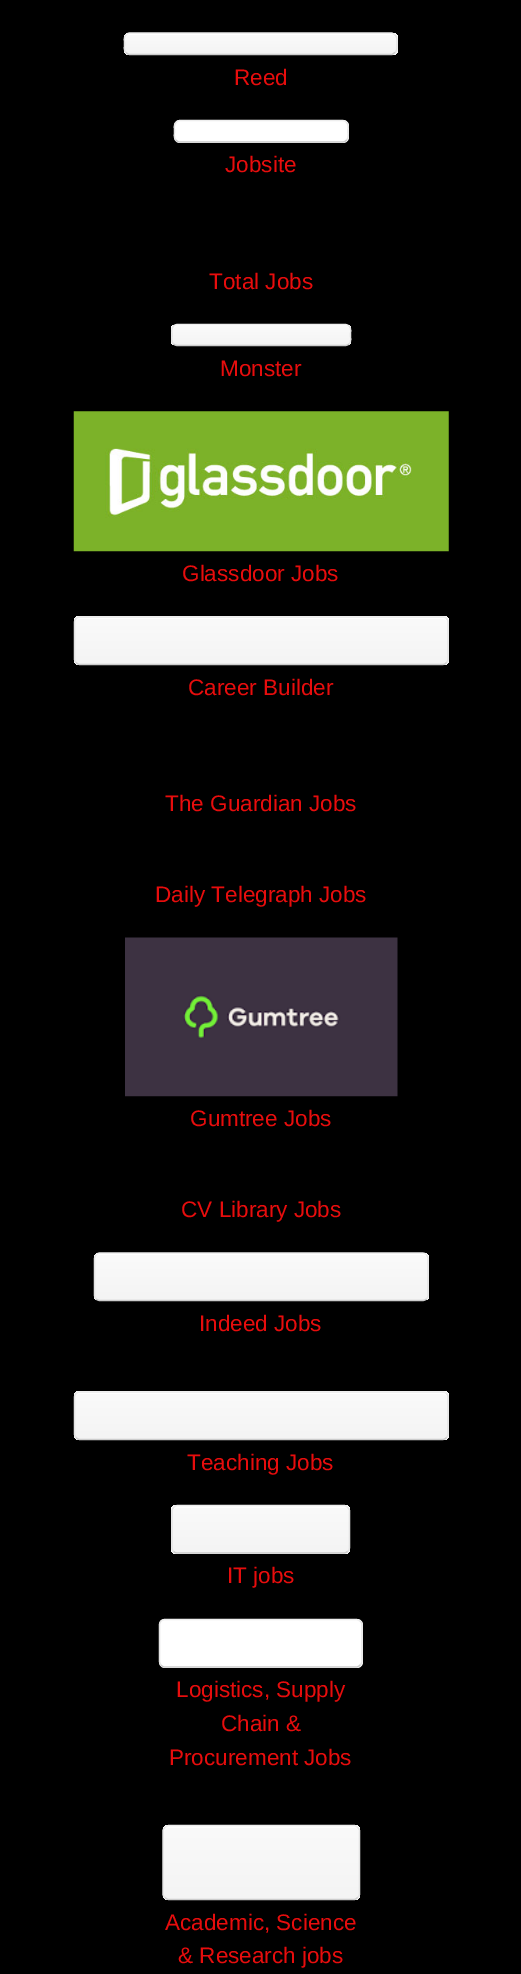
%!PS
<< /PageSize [521 1974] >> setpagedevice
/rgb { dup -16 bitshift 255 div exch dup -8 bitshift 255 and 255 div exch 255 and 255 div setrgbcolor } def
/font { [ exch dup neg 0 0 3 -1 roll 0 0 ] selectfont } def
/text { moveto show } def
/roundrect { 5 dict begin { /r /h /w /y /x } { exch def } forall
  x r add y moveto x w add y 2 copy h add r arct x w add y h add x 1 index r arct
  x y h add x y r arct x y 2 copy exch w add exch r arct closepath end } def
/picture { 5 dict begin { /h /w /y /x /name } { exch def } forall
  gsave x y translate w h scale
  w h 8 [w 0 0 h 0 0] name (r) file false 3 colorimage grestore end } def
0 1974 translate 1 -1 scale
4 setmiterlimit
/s1 { /LiberationSans-Regular 22.5 font 16#E70D0D rgb } def
16#000000 rgb
0 0 521 1974 rectfill
gsave
124 33 274 22 6 roundrect clip newpath
gsave 124 33 moveto 398 33 lineto 398 34 lineto 124 34 lineto closepath clip newpath
<< /ShadingType 2 /ColorSpace /DeviceRGB /Coords [261 14 261 34] /Extend [true true] /Function << /FunctionType 2 /Domain [0 1] /C0 [0.98 0.98 0.98] /C1 [0.957 0.957 0.957] /N 1 >> >> shfill grestore
gsave 124 34 moveto 398 34 lineto 398 54 lineto 124 54 lineto closepath clip newpath
<< /ShadingType 2 /ColorSpace /DeviceRGB /Coords [261 34 261 54] /Extend [true true] /Function << /FunctionType 2 /Domain [0 1] /C0 [0.98 0.98 0.98] /C1 [0.957 0.957 0.957] /N 1 >> >> shfill grestore
gsave 124 54 moveto 398 54 lineto 398 55 lineto 124 55 lineto closepath clip newpath
<< /ShadingType 2 /ColorSpace /DeviceRGB /Coords [261 54 261 74] /Extend [true true] /Function << /FunctionType 2 /Domain [0 1] /C0 [0.98 0.98 0.98] /C1 [0.957 0.957 0.957] /N 1 >> >> shfill grestore
grestore
16#FFFFFF rgb
130 35 moveto 391 35 lineto 394 35 396 37 396 40 curveto 396 37 394 34 391 34 curveto 130 34 lineto 127 34 125 37 125 40 curveto 125 37 127 35 130 35 curveto closepath fill
16#EEEEEE rgb
1.2 setlinewidth
126 35 moveto 127 33.5 128.5 33 130 33 curveto 392 33 lineto 395 35 lineto stroke
16#E4E4E4 rgb
395 35 moveto 397.5 37 397 41 397 44 curveto 397 46.5 397.5 50.5 395 52.5 curveto stroke
16#CCCCCC rgb
395 52.5 moveto 392 54.5 lineto 130 54.5 lineto 128.5 54.5 127 54 126 52.5 curveto stroke
16#E4E4E4 rgb
126 52.5 moveto 123.5 50.5 124.5 46.5 124.5 44 curveto 124.5 41 123.5 37 126 35 curveto stroke
s1
(Reed) 234 85 text
16#FFFFFF rgb
174 120 175 23 6 roundrect fill
16#EEEEEE rgb
176 122.5 moveto 177 121 178.5 120.5 180 120.5 curveto 342.5 120.5 lineto 344 120.5 345.5 121 346.5 122.5 curveto stroke
16#E4E4E4 rgb
346.5 122.5 moveto 349 124.5 348 128.5 348 131 curveto 348 134 349 138 346.5 140 curveto stroke
16#CCCCCC rgb
346.5 140 moveto 345.5 141.5 344 142 342.5 142 curveto 180 142 lineto 178.5 142 177 141.5 176 140 curveto stroke
16#E4E4E4 rgb
176 140 moveto 173.5 138 174.5 134 174.5 131 curveto 174.5 128.5 173.5 124.5 176 122.5 curveto stroke
s1
(Jobsite) 225 172 text
(Total Jobs) 209 289 text
gsave
171 324 180 22 6 roundrect clip newpath
gsave 171 325 moveto 351 325 lineto 351 345 lineto 171 345 lineto closepath clip newpath
<< /ShadingType 2 /ColorSpace /DeviceRGB /Coords [261 325 261 345] /Extend [true true] /Function << /FunctionType 2 /Domain [0 1] /C0 [0.98 0.98 0.98] /C1 [0.957 0.957 0.957] /N 1 >> >> shfill grestore
grestore
16#FFFFFF rgb
178 326 moveto 345 326 lineto 348 326 350 328 350 331 curveto 350 330 lineto 350 327 348 325 345 325 curveto 178 325 lineto 176 325 174 326 174 328 curveto 175 327 176 326 178 326 curveto closepath fill
16#EEEEEE rgb
173.5 326 moveto 174.5 325 176 324.5 177.5 324.5 curveto 345 324.5 lineto 346.5 324.5 348 325 349 326 curveto stroke
16#E4E4E4 rgb
349 326 moveto 351.5 328.5 350.5 332 350.5 335 curveto 350.5 338 351.5 341.5 349 344 curveto stroke
16#CCCCCC rgb
349 344 moveto 348 345 346.5 345.5 345 345.5 curveto 177.5 345.5 lineto 176 345.5 174.5 345 173.5 344 curveto stroke
16#E4E4E4 rgb
173.5 344 moveto 171 341.5 172 338 172 335 curveto 172 332 171 328.5 173.5 326 curveto stroke
s1
(Monster) 220 376 text
(pic1.raw) 73 411 376 141 picture
(Glassdoor Jobs) 182 581 text
gsave
74 616 375 49 6 roundrect clip newpath
gsave 74 616 moveto 449 616 lineto 449 618 lineto 74 618 lineto closepath clip newpath
<< /ShadingType 2 /ColorSpace /DeviceRGB /Coords [261 571 261 618] /Extend [true true] /Function << /FunctionType 2 /Domain [0 1] /C0 [0.98 0.98 0.98] /C1 [0.957 0.957 0.957] /N 1 >> >> shfill grestore
gsave 74 618 moveto 449 618 lineto 449 664 lineto 74 664 lineto closepath clip newpath
<< /ShadingType 2 /ColorSpace /DeviceRGB /Coords [261 618 261 664] /Extend [true true] /Function << /FunctionType 2 /Domain [0 1] /C0 [0.98 0.98 0.98] /C1 [0.957 0.957 0.957] /N 1 >> >> shfill grestore
gsave 74 664 moveto 449 664 lineto 449 665 lineto 74 665 lineto closepath clip newpath
<< /ShadingType 2 /ColorSpace /DeviceRGB /Coords [261 664 261 710] /Extend [true true] /Function << /FunctionType 2 /Domain [0 1] /C0 [0.98 0.98 0.98] /C1 [0.957 0.957 0.957] /N 1 >> >> shfill grestore
grestore
16#FFFFFF rgb
80 619 moveto 442 619 lineto 445 619 448 621 448 624 curveto 448 623 lineto 448 620 446 618 443 618 curveto 80 618 lineto 77 618 75 620 75 623 curveto 75 624 lineto 75 621 77 619 80 619 curveto closepath fill
16#EEEEEE rgb
76 618.5 moveto 77 617.5 78.5 617 80 617 curveto 442.5 617 lineto 444 617 445.5 617.5 446.5 618.5 curveto stroke
16#E4E4E4 rgb
446.5 618.5 moveto 447.5 619.5 448 621 448 622.5 curveto 448 659 lineto 448 660 447.5 661.5 446.5 662.5 curveto stroke
16#CCCCCC rgb
446.5 662.5 moveto 445.5 664 444 664.5 442.5 664.5 curveto 80 664.5 lineto 78.5 664.5 77 664 76 662.5 curveto stroke
16#E4E4E4 rgb
76 662.5 moveto 75 661.5 74.5 660 74.5 659 curveto 74.5 622.5 lineto 74.5 621 75 619.5 76 618.5 curveto stroke
s1
(Career Builder) 188 695 text
(The Guardian Jobs) 165 811 text
(Daily Telegraph Jobs) 155 902 text
(pic2.raw) 125 937 273 160 picture
(Gumtree Jobs) 190 1126 text
(CV Library Jobs) 181 1217 text
gsave
94 1253 335 48 6 roundrect clip newpath
gsave 94 1253 moveto 429 1253 lineto 429 1254 lineto 94 1254 lineto closepath clip newpath
<< /ShadingType 2 /ColorSpace /DeviceRGB /Coords [261 1208 261 1254] /Extend [true true] /Function << /FunctionType 2 /Domain [0 1] /C0 [0.98 0.98 0.98] /C1 [0.957 0.957 0.957] /N 1 >> >> shfill grestore
gsave 94 1254 moveto 429 1254 lineto 429 1300 lineto 94 1300 lineto closepath clip newpath
<< /ShadingType 2 /ColorSpace /DeviceRGB /Coords [261 1254 261 1300] /Extend [true true] /Function << /FunctionType 2 /Domain [0 1] /C0 [0.98 0.98 0.98] /C1 [0.957 0.957 0.957] /N 1 >> >> shfill grestore
grestore
16#FFFFFF rgb
100 1255 moveto 422 1255 lineto 425 1255 428 1257 428 1260 curveto 428 1257 426 1254 423 1254 curveto 100 1254 lineto 97 1254 95 1257 95 1260 curveto 95 1257 97 1255 100 1255 curveto closepath fill
16#EEEEEE rgb
96 1255 moveto 97 1253.5 98.5 1253 100 1253 curveto 422.5 1253 lineto 424 1253 425.5 1253.5 426.5 1255 curveto stroke
16#E4E4E4 rgb
426.5 1255 moveto 427.5 1256 428 1257.5 428 1259 curveto 428 1295 lineto 428 1296.5 427.5 1298 426.5 1299 curveto stroke
16#CCCCCC rgb
426.5 1299 moveto 425.5 1300 424 1300.5 422.5 1300.5 curveto 100 1300.5 lineto 98.5 1300.5 97 1300 96 1299 curveto stroke
16#E4E4E4 rgb
96 1299 moveto 95 1298 94.5 1296.5 94.5 1295 curveto 94.5 1259 lineto 94.5 1257.5 95 1256 96 1255 curveto stroke
s1
(Indeed Jobs) 199 1331 text
gsave
74 1391 375 49 6 roundrect clip newpath
gsave 74 1391 moveto 449 1391 lineto 449 1393 lineto 74 1393 lineto closepath clip newpath
<< /ShadingType 2 /ColorSpace /DeviceRGB /Coords [261 1346 261 1393] /Extend [true true] /Function << /FunctionType 2 /Domain [0 1] /C0 [0.98 0.98 0.98] /C1 [0.957 0.957 0.957] /N 1 >> >> shfill grestore
gsave 74 1393 moveto 449 1393 lineto 449 1439 lineto 74 1439 lineto closepath clip newpath
<< /ShadingType 2 /ColorSpace /DeviceRGB /Coords [261 1393 261 1439] /Extend [true true] /Function << /FunctionType 2 /Domain [0 1] /C0 [0.98 0.98 0.98] /C1 [0.957 0.957 0.957] /N 1 >> >> shfill grestore
gsave 74 1439 moveto 449 1439 lineto 449 1440 lineto 74 1440 lineto closepath clip newpath
<< /ShadingType 2 /ColorSpace /DeviceRGB /Coords [261 1439 261 1485] /Extend [true true] /Function << /FunctionType 2 /Domain [0 1] /C0 [0.98 0.98 0.98] /C1 [0.957 0.957 0.957] /N 1 >> >> shfill grestore
grestore
16#FFFFFF rgb
80 1394 moveto 442 1394 lineto 445 1394 448 1396 448 1399 curveto 448 1398 lineto 448 1395 446 1393 443 1393 curveto 80 1393 lineto 77 1393 75 1395 75 1398 curveto 75 1399 lineto 75 1396 77 1394 80 1394 curveto closepath fill
16#EEEEEE rgb
76 1393.5 moveto 77 1392.5 78.5 1392 80 1392 curveto 442.5 1392 lineto 444 1392 445.5 1392.5 446.5 1393.5 curveto stroke
16#E4E4E4 rgb
446.5 1393.5 moveto 447.5 1394.5 448 1396 448 1397.5 curveto 448 1434 lineto 448 1435 447.5 1436.5 446.5 1437.5 curveto stroke
16#CCCCCC rgb
446.5 1437.5 moveto 445.5 1439 444 1439.5 442.5 1439.5 curveto 80 1439.5 lineto 78.5 1439.5 77 1439 76 1437.5 curveto stroke
16#E4E4E4 rgb
76 1437.5 moveto 75 1436.5 74.5 1435 74.5 1434 curveto 74.5 1397.5 lineto 74.5 1396 75 1394.5 76 1393.5 curveto stroke
s1
(Teaching Jobs) 187 1470 text
gsave
171 1505 179 49 6 roundrect clip newpath
gsave 171 1505 moveto 350 1505 lineto 350 1506 lineto 171 1506 lineto closepath clip newpath
<< /ShadingType 2 /ColorSpace /DeviceRGB /Coords [261 1460 261 1506] /Extend [true true] /Function << /FunctionType 2 /Domain [0 1] /C0 [0.98 0.98 0.98] /C1 [0.957 0.957 0.957] /N 1 >> >> shfill grestore
gsave 171 1506 moveto 350 1506 lineto 350 1553 lineto 171 1553 lineto closepath clip newpath
<< /ShadingType 2 /ColorSpace /DeviceRGB /Coords [261 1506 261 1553] /Extend [true true] /Function << /FunctionType 2 /Domain [0 1] /C0 [0.98 0.98 0.98] /C1 [0.957 0.957 0.957] /N 1 >> >> shfill grestore
gsave 171 1553 moveto 350 1553 lineto 350 1554 lineto 171 1554 lineto closepath clip newpath
<< /ShadingType 2 /ColorSpace /DeviceRGB /Coords [261 1553 261 1599] /Extend [true true] /Function << /FunctionType 2 /Domain [0 1] /C0 [0.98 0.98 0.98] /C1 [0.957 0.957 0.957] /N 1 >> >> shfill grestore
grestore
16#FFFFFF rgb
178 1508 moveto 345 1508 lineto 348 1509 lineto 349 1512 lineto 349 1509 348 1507 345 1506 curveto 176 1506 lineto 175 1507 174 1508 173 1510 curveto 174 1509 176 1508 178 1508 curveto closepath fill
16#EEEEEE rgb
173.5 1507.5 moveto 174.5 1506 176 1505.5 177.5 1505.5 curveto 344 1505.5 lineto 345 1505.5 346.5 1506 347.5 1507.5 curveto stroke
16#E4E4E4 rgb
347.5 1507.5 moveto 349 1508.5 349.5 1510 349.5 1511 curveto 349.5 1547.5 lineto 349.5 1549 349 1550.5 347.5 1551.5 curveto stroke
16#CCCCCC rgb
347.5 1551.5 moveto 346.5 1552.5 345 1553 344 1553 curveto 177.5 1553 lineto 176 1553 174.5 1552.5 173.5 1551.5 curveto stroke
16#E4E4E4 rgb
173.5 1551.5 moveto 172.5 1550.5 172 1549 172 1547.5 curveto 172 1511 lineto 172 1510 172.5 1508.5 173.5 1507.5 curveto stroke
s1
(IT jobs) 227 1583 text
16#FFFFFF rgb
159 1619 204 49 6 roundrect fill
16#EEEEEE rgb
161 1621 moveto 162 1620 163.5 1619.5 165 1619.5 curveto 356 1619.5 lineto 357.5 1619.5 359 1620 360 1621 curveto stroke
16#E4E4E4 rgb
360 1621 moveto 361.5 1622 362 1623.5 362 1625 curveto 362 1661 lineto 362 1662.5 361.5 1664 360 1665 curveto stroke
16#CCCCCC rgb
360 1665 moveto 359 1666.5 357.5 1667 356 1667 curveto 165 1667 lineto 163.5 1667 162 1666.5 161 1665 curveto stroke
16#E4E4E4 rgb
161 1665 moveto 160 1664 159.5 1662.5 159.5 1661 curveto 159.5 1625 lineto 159.5 1623.5 160 1622 161 1621 curveto stroke
s1
(Logistics, Supply) 176 1697 text
(Chain &) 221 1731 text
(Procurement Jobs) 169 1765 text
gsave
163 1825 197 75 6 roundrect clip newpath
gsave 163 1825 moveto 360 1825 lineto 360 1826 lineto 163 1826 lineto closepath clip newpath
<< /ShadingType 2 /ColorSpace /DeviceRGB /Coords [261 1754 261 1826] /Extend [true true] /Function << /FunctionType 2 /Domain [0 1] /C0 [0.98 0.98 0.98] /C1 [0.957 0.957 0.957] /N 1 >> >> shfill grestore
gsave 163 1826 moveto 360 1826 lineto 360 1899 lineto 163 1899 lineto closepath clip newpath
<< /ShadingType 2 /ColorSpace /DeviceRGB /Coords [261 1826 261 1899] /Extend [true true] /Function << /FunctionType 2 /Domain [0 1] /C0 [0.98 0.98 0.98] /C1 [0.957 0.957 0.957] /N 1 >> >> shfill grestore
gsave 163 1899 moveto 360 1899 lineto 360 1900 lineto 163 1900 lineto closepath clip newpath
<< /ShadingType 2 /ColorSpace /DeviceRGB /Coords [261 1899 261 1971] /Extend [true true] /Function << /FunctionType 2 /Domain [0 1] /C0 [0.98 0.98 0.98] /C1 [0.957 0.957 0.957] /N 1 >> >> shfill grestore
grestore
16#FFFFFF rgb
169 1828 moveto 354 1828 lineto 357 1828 359 1830 359 1832 curveto 359 1831 lineto 359 1828 357 1826 354 1826 curveto 169 1826 lineto 166 1826 164 1828 164 1831 curveto 164 1832 lineto 164 1830 166 1828 169 1828 curveto closepath fill
16#EEEEEE rgb
165 1827.5 moveto 166 1826 167.5 1825.5 169 1825.5 curveto 354 1825.5 lineto 355 1825.5 356.5 1826 357.5 1827.5 curveto stroke
16#E4E4E4 rgb
357.5 1827.5 moveto 359 1828.5 359.5 1830 359.5 1831 curveto 359.5 1894 lineto 359.5 1895 359 1896.5 357.5 1897.5 curveto stroke
16#CCCCCC rgb
357.5 1897.5 moveto 356.5 1899 355 1899.5 354 1899.5 curveto 169 1899.5 lineto 167.5 1899.5 166 1899 165 1897.5 curveto stroke
16#E4E4E4 rgb
165 1897.5 moveto 163.5 1896.5 163 1895 163 1894 curveto 163 1831 lineto 163 1830 163.5 1828.5 165 1827.5 curveto stroke
s1
(Academic, Science) 165 1930 text
(& Research jobs) 178 1963 text
showpage
